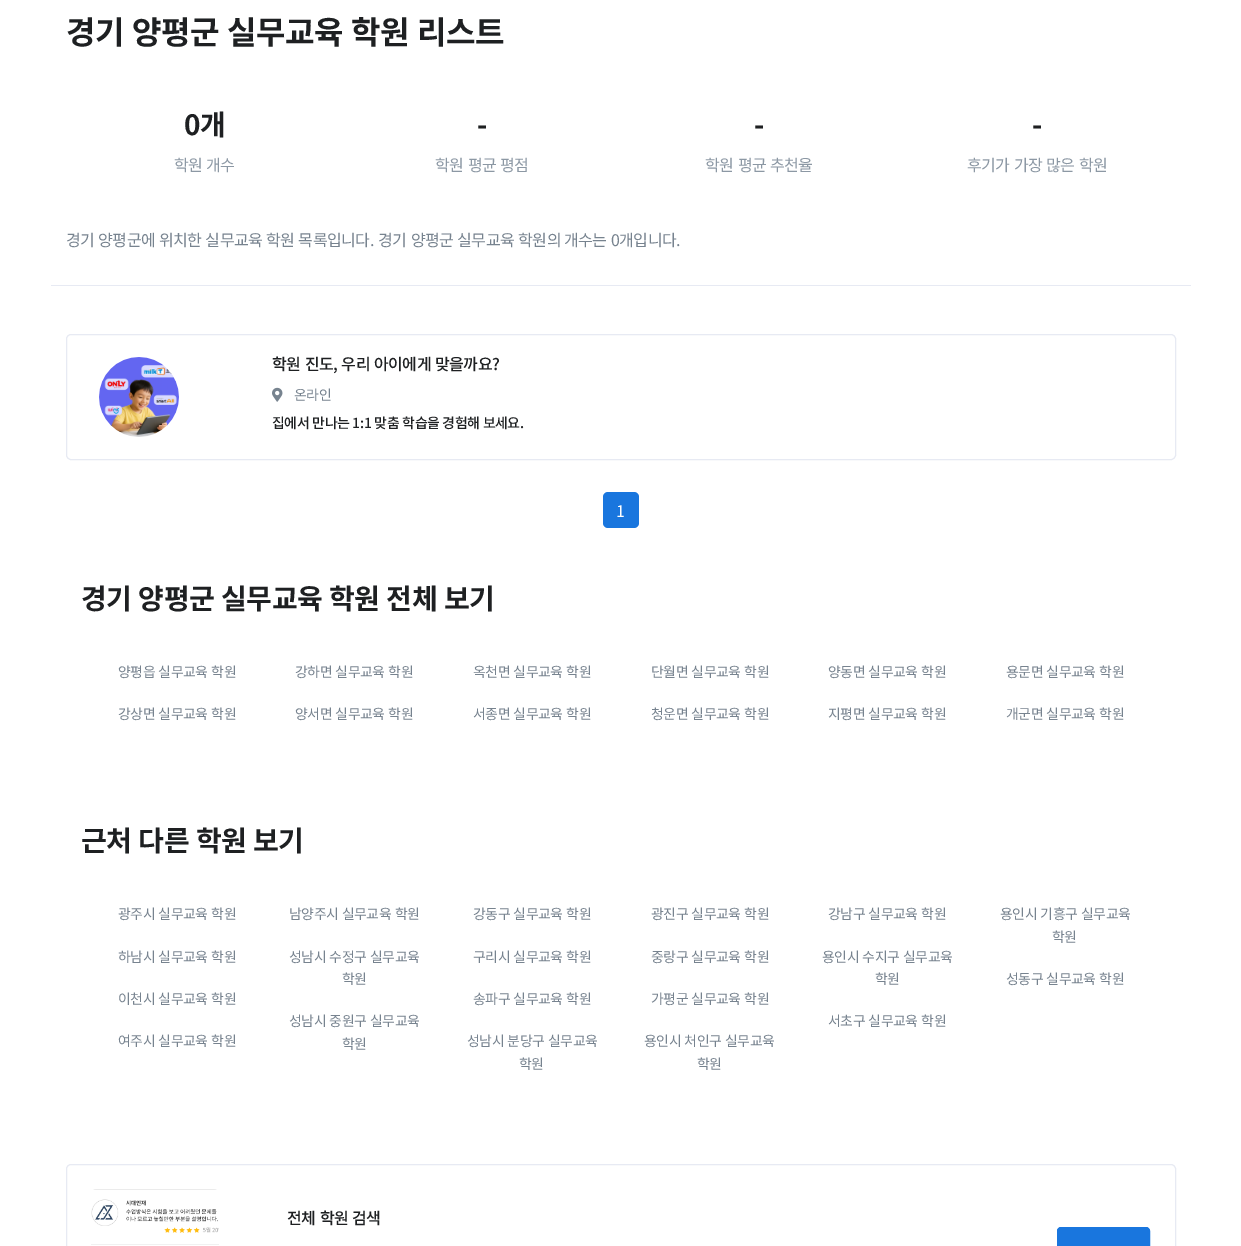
%!PS
<< /PageSize [1241 1246] >> setpagedevice
/rgb { dup -16 bitshift 255 div exch dup -8 bitshift 255 and 255 div exch 255 and 255 div setrgbcolor } def
/font { [ exch dup neg 0 0 3 -1 roll 0 0 ] selectfont } def
/roundrect { 5 dict begin { /r /h /w /y /x } { exch def } forall
  x r add y moveto x w add y 2 copy h add r arct x w add y h add x 1 index r arct
  x y h add x y r arct x y 2 copy exch w add exch r arct closepath end } def
/picture { 5 dict begin { /h /w /y /x /name } { exch def } forall
  gsave x y translate w h scale
  w h 8 [w 0 0 h 0 0] name (r) file false 3 colorimage grestore end } def
0 1246 translate 1 -1 scale
4 setmiterlimit
16#FFFFFF rgb
0 0 1241 1246 rectfill
16#E7EAF3 rgb
51 285 1140 1 rectfill
/NotoSansKR-Bold 32 font
16#1E2022 rgb
66 44 moveto 1.5 0 32 -0.5 0 (경기 양평군 실무교육 학원 리스트) awidthshow
/NotoSansKR-Bold 28 font
184 135 moveto -0.5 0 (0개) ashow
/NotoSansKR-Regular 16 font
16#8C98A4 rgb
174 171 moveto -0.5 0 (학원 개수) ashow
/NotoSansKR-Bold 28 font
16#1E2022 rgb
477 135 moveto -0.5 0 (-) ashow
/NotoSansKR-Regular 16 font
16#8C98A4 rgb
435 171 moveto 1 0 32 -0.5 0 (학원 평균 평점) awidthshow
/NotoSansKR-Bold 28 font
16#1E2022 rgb
754 135 moveto -0.5 0 (-) ashow
/NotoSansKR-Regular 16 font
16#8C98A4 rgb
705 171 moveto 1 0 32 -0.5 0 (학원 평균 추천율) awidthshow
/NotoSansKR-Bold 28 font
16#1E2022 rgb
1032 135 moveto -0.5 0 (-) ashow
/NotoSansKR-Regular 16 font
16#8C98A4 rgb
967 171 moveto 1 0 32 -0.5 0 (후기가 가장 많은 학원) awidthshow
16#77838F rgb
66 246 moveto 0.75 0 32 -0.5 0 (경기 양평군에 위치한 실무교육 학원 목록입니다.) awidthshow
378 246 moveto 1 0 32 -0.5 0 (경기 양평군 실무교육 학원의) awidthshow
564 246 moveto 1 0 32 -0.5 0 (개수는 0개입니다.) awidthshow
16#E7EAF3 rgb
66.5 334.5 1109 125 4.5 roundrect stroke
(pic1.raw) 99 357 80 80 picture
/NotoSansKR-Medium 16 font
16#1E2022 rgb
272 370 moveto 1 0 32 -0.5 0 (학원 진도, 우리 아이에게 맞을까요?) awidthshow
(pic2.raw) 272 387 11 15 picture
/NotoSansKR-Regular 13.9 font
16#77838F rgb
294 400 moveto -0.5 0 (온라인) ashow
/NotoSansKR-Medium 13.9 font
16#1E2022 rgb
272 428 moveto 0.75 0 32 -0.5 0 (집에서 만나는 1:1 맞춤 학습을 경험해 보세요.) awidthshow
16#1976DE rgb
603 492 36 36 5 roundrect fill
/NotoSansKR-Regular 16 font
16#FFFFFF rgb
616 517 moveto -0.5 0 (1) ashow
/NotoSansKR-Bold 28 font
16#1E2022 rgb
81 609 moveto 1 0 32 -0.5 0 (경기 양평군 실무교육 학원 전체 보기) awidthshow
/NotoSansKR-Regular 13.9 font
16#77838F rgb
118 677 moveto 1 0 32 -0.5 0 (양평읍 실무교육 학원) awidthshow
295 677 moveto 1 0 32 -0.5 0 (강하면 실무교육 학원) awidthshow
473 677 moveto 1 0 32 -0.5 0 (옥천면 실무교육 학원) awidthshow
651 677 moveto 1 0 32 -0.5 0 (단월면 실무교육 학원) awidthshow
828 677 moveto 1 0 32 -0.5 0 (양동면 실무교육 학원) awidthshow
1006 677 moveto 1 0 32 -0.5 0 (용문면 실무교육 학원) awidthshow
118 719 moveto 1 0 32 -0.5 0 (강상면 실무교육 학원) awidthshow
295 719 moveto 1 0 32 -0.5 0 (양서면 실무교육 학원) awidthshow
473 719 moveto 1 0 32 -0.5 0 (서종면 실무교육 학원) awidthshow
651 719 moveto 1 0 32 -0.5 0 (청운면 실무교육 학원) awidthshow
828 719 moveto 1 0 32 -0.5 0 (지평면 실무교육 학원) awidthshow
1006 719 moveto 1 0 32 -0.5 0 (개군면 실무교육 학원) awidthshow
/NotoSansKR-Bold 28 font
16#1E2022 rgb
81 851 moveto 1 0 32 -0.5 0 (근처 다른 학원 보기) awidthshow
/NotoSansKR-Regular 13.9 font
16#77838F rgb
118 919 moveto 1 0 32 -0.5 0 (광주시 실무교육 학원) awidthshow
289 919 moveto 1 0 32 -0.5 0 (남양주시 실무교육 학원) awidthshow
473 919 moveto 1 0 32 -0.5 0 (강동구 실무교육 학원) awidthshow
651 919 moveto 1 0 32 -0.5 0 (광진구 실무교육 학원) awidthshow
828 919 moveto 1 0 32 -0.5 0 (강남구 실무교육 학원) awidthshow
1000 919 moveto 1 0 32 -0.5 0 (용인시 기흥구 실무교육) awidthshow
1052 942 moveto -0.5 0 (학원) ashow
118 962 moveto 1 0 32 -0.5 0 (하남시 실무교육 학원) awidthshow
289 962 moveto 1 0 32 -0.5 0 (성남시 수정구 실무교육) awidthshow
342 984 moveto -0.5 0 (학원) ashow
473 962 moveto 1 0 32 -0.5 0 (구리시 실무교육 학원) awidthshow
651 962 moveto 1 0 32 -0.5 0 (중랑구 실무교육 학원) awidthshow
822 962 moveto 1 0 32 -0.5 0 (용인시 수지구 실무교육) awidthshow
875 984 moveto -0.5 0 (학원) ashow
1006 984 moveto 1 0 32 -0.5 0 (성동구 실무교육 학원) awidthshow
118 1004 moveto 1 0 32 -0.5 0 (이천시 실무교육 학원) awidthshow
473 1004 moveto 1 0 32 -0.5 0 (송파구 실무교육 학원) awidthshow
651 1004 moveto 1 0 32 -0.5 0 (가평군 실무교육 학원) awidthshow
289 1026 moveto 1 0 32 -0.5 0 (성남시 중원구 실무교육) awidthshow
342 1049 moveto -0.5 0 (학원) ashow
828 1026 moveto 1 0 32 -0.5 0 (서초구 실무교육 학원) awidthshow
118 1046 moveto 1 0 32 -0.5 0 (여주시 실무교육 학원) awidthshow
467 1046 moveto 1 0 32 -0.5 0 (성남시 분당구 실무교육) awidthshow
519 1069 moveto -0.5 0 (학원) ashow
644 1046 moveto 1 0 32 -0.5 0 (용인시 처인구 실무교육) awidthshow
697 1069 moveto -0.5 0 (학원) ashow
16#E7EAF3 rgb
66.5 1164.5 1109 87 4.5 roundrect stroke
(pic3.raw) 91 1189 128 56 picture
/NotoSansKR-Medium 16 font
16#1E2022 rgb
287 1224 moveto 1 0 32 -0.5 0 (전체 학원 검색) awidthshow
16#1976DE rgb
1057.5 1227.5 92 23 3.5 roundrect gsave fill grestore
stroke
showpage
